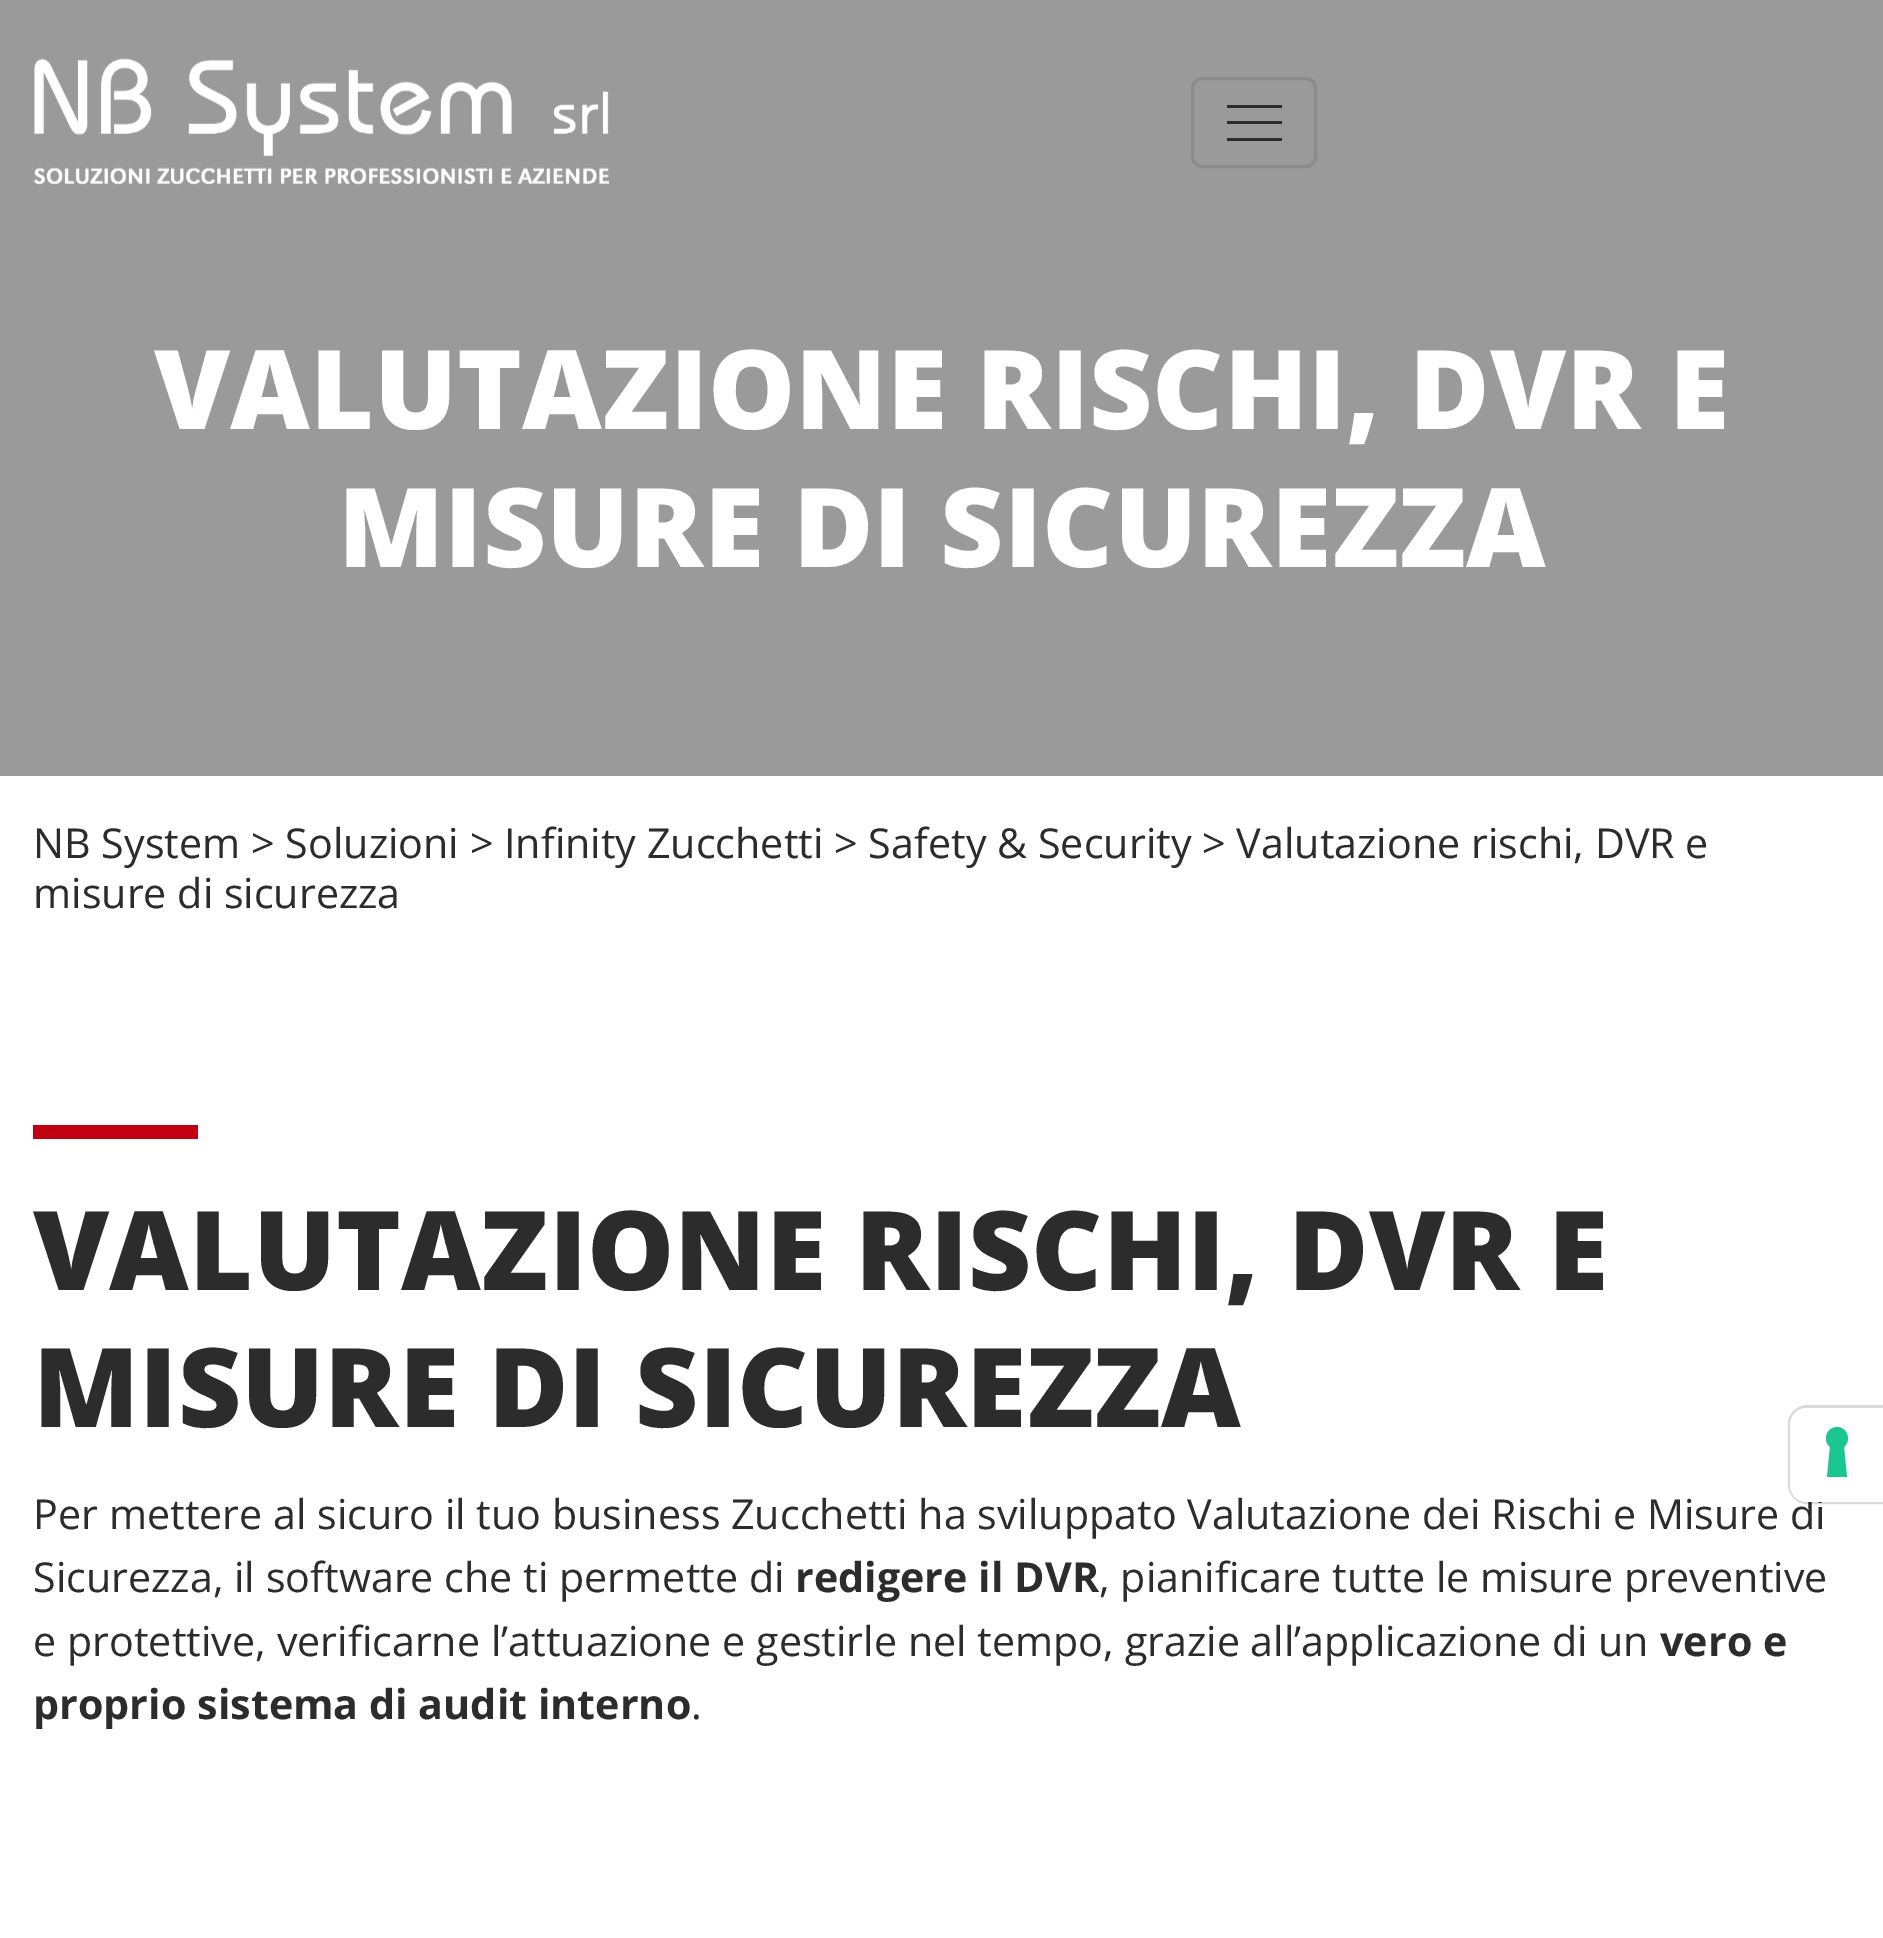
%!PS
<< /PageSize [1883 1938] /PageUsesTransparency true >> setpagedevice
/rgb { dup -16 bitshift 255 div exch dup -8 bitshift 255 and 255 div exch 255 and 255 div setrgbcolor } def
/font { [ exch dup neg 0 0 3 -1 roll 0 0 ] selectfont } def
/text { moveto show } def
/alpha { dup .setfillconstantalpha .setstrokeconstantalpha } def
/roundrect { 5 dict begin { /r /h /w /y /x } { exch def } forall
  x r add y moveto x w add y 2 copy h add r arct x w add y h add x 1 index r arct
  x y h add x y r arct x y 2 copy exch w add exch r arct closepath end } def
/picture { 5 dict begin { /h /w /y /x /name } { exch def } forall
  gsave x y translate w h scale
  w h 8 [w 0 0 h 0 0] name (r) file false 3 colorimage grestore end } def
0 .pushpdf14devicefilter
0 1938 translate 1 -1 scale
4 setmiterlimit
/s1 { /OpenSans-ExtraBold 110 font 16#FFFFFF rgb } def
/s2 { /OpenSans-Regular 41.25 font 16#2C2C2C rgb } def
/s3 { /OpenSans-ExtraBold 110 font 16#2C2C2C rgb } def
/s4 { /OpenSans-Bold 41.25 font 16#2C2C2C rgb } def
16#FFFFFF rgb
0 0 1883 1938 rectfill
16#9A9A9A rgb
0 0 1883 776 rectfill
(pic1.raw) 33 58 576 127 picture
16#8B8B8B rgb
3 setlinewidth
1192.5 78.5 123 88 9.5 roundrect stroke
16#2C2C2C rgb
1227 105 55 3 rectfill
1227 121 55 3 rectfill
1227 138 55 3 rectfill
s1
(VALUTAZIONE RISCHI, DVR E) 154 429 text
(MISURE DI SICUREZZA) 338 567 text
s2
(NB System > Soluzioni > Infinity Zucchetti > Safety & Security > Valutazione rischi, DVR e) 33 858 text
(misure di sicurezza) 33 908 text
16#BF0012 rgb
33 1125 165 14 rectfill
s3
(VALUTAZIONE RISCHI, DVR E) 33 1290 text
(MISURE DI SICUREZZA) 33 1427 text
s2
(Per mettere al sicuro il tuo business Zucchetti ha sviluppato Valutazione dei Rischi e Misure di) 33 1529 text
(Sicurezza, il software che ti permette di) 33 1592 text
s4
(redigere il DVR) 795 1592 text
s2
(, pianificare tutte le misure preventive) 1099 1592 text
(e protettive, verificarne l’attuazione e gestirle nel tempo, grazie all’applicazione di un) 33 1656 text
s4
(vero e) 1660 1656 text
(proprio sistema di audit interno) 33 1719 text
s2
(.) 691 1719 text
0.15 alpha
16#000000 rgb
1807 1406.5 moveto 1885.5 1406.5 lineto 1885.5 1502.5 lineto 1807 1502.5 lineto 1797.5 1502.5 1789.5 1494.5 1789.5 1485 curveto 1789.5 1424 lineto 1789.5 1414.5 1797.5 1406.5 1807 1406.5 curveto closepath stroke
1 alpha
16#FFFFFF rgb
1807 1408 moveto 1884 1408 lineto 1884 1502 lineto 1807 1502 lineto 1797.5 1502 1790 1494.5 1790 1485 curveto 1790 1425 lineto 1790 1415.5 1797.5 1408 1807 1408 curveto closepath fill
16#1CC691 rgb
1837 1427 moveto 1847 1427 1852 1440 1844 1447 curveto 1847 1477 lineto 1827 1477 lineto 1830 1447 lineto 1822 1440 1827 1427 1837 1427 curveto closepath eofill
.poppdf14devicefilter showpage
